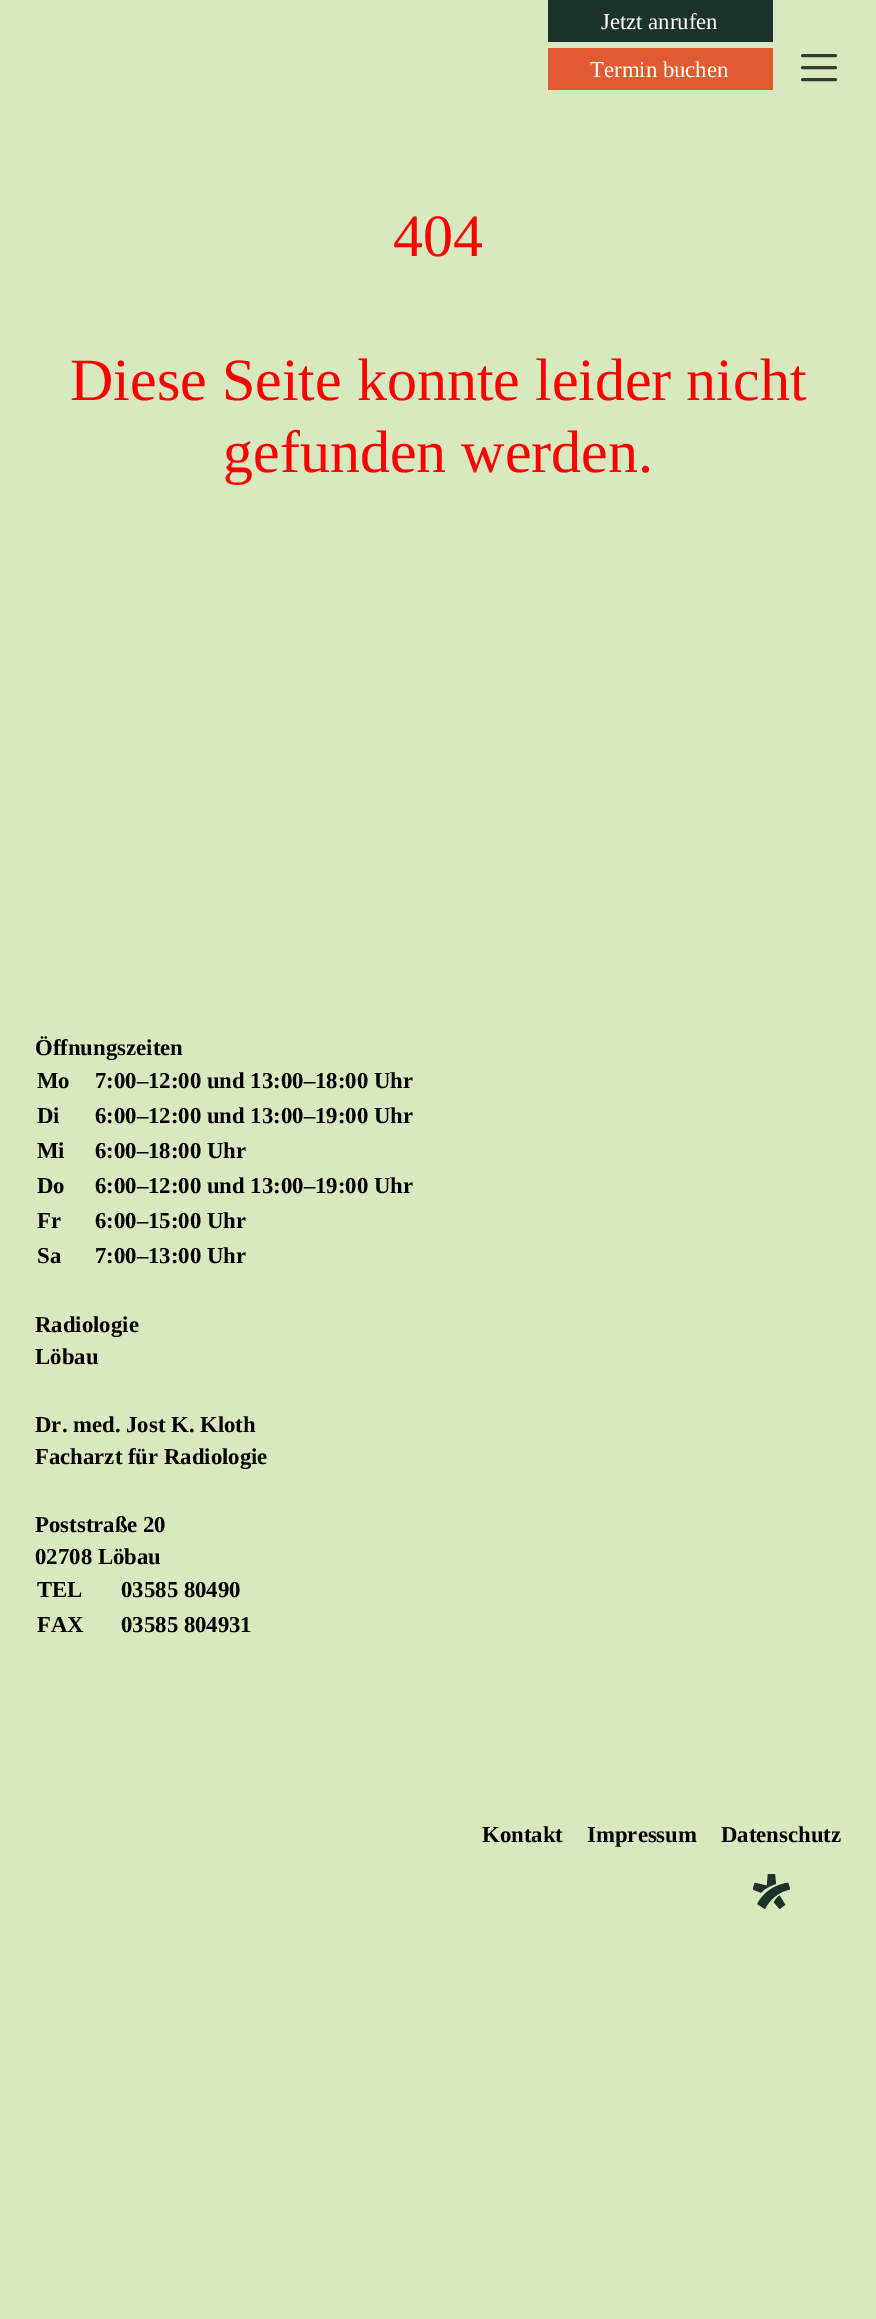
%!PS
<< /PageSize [876 2319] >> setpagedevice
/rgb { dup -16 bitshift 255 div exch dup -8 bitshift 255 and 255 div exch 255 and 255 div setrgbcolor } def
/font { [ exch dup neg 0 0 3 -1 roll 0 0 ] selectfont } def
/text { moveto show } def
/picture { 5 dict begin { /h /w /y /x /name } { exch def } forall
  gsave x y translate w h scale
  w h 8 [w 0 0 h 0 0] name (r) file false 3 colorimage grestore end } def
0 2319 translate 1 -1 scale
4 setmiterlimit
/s1 { /LiberationSerif-Regular 22.75 font 16#FFFFFF rgb } def
/s2 { /LiberationSerif-Regular 60 font 16#FF0000 rgb } def
/s3 { /LiberationSerif-Bold 22.75 font 16#000000 rgb } def
16#D8E8BF rgb
0 0 876 2319 rectfill
16#1C332C rgb
548 0 225 42 rectfill
s1
(Jetzt anrufen) 601 29 text
16#E25A31 rgb
548 48 225 42 rectfill
s1
(Termin buchen) 590 77 text
16#363A30 rgb
3 setlinewidth
1 setlinecap
802.5 55.5 moveto 835.5 55.5 lineto 802.5 67.5 moveto 835.5 67.5 lineto 802.5 79.5 moveto 835.5 79.5 lineto stroke
s2
(404) 393 256 text
(Diese Seite konnte leider nicht) 70 400 text
(gefunden werden.) 223 472 text
s3
(Öffnungszeiten) 35 1055 text
(Mo) 37 1088 text
(7:00–12:00 und 13:00–18:00 Uhr) 95 1088 text
(Di) 37 1123 text
(6:00–12:00 und 13:00–19:00 Uhr) 95 1123 text
(Mi) 37 1158 text
(6:00–18:00 Uhr) 95 1158 text
(Do) 37 1193 text
(6:00–12:00 und 13:00–19:00 Uhr) 95 1193 text
(Fr) 37 1228 text
(6:00–15:00 Uhr) 95 1228 text
(Sa) 37 1263 text
(7:00–13:00 Uhr) 95 1263 text
(Radiologie) 35 1332 text
(Löbau) 35 1364 text
(Dr. med. Jost K. Kloth) 35 1432 text
(Facharzt für Radiologie) 35 1464 text
(Poststraße 20) 35 1532 text
(02708 Löbau) 35 1564 text
(TEL) 37 1597 text
(03585 80490) 121 1597 text
(FAX) 37 1632 text
(03585 804931) 121 1632 text
(Kontakt) 482 1842 text
(Impressum) 587 1842 text
(Datenschutz) 721 1842 text
(pic1.raw) 753 1874 37 35 picture
showpage
